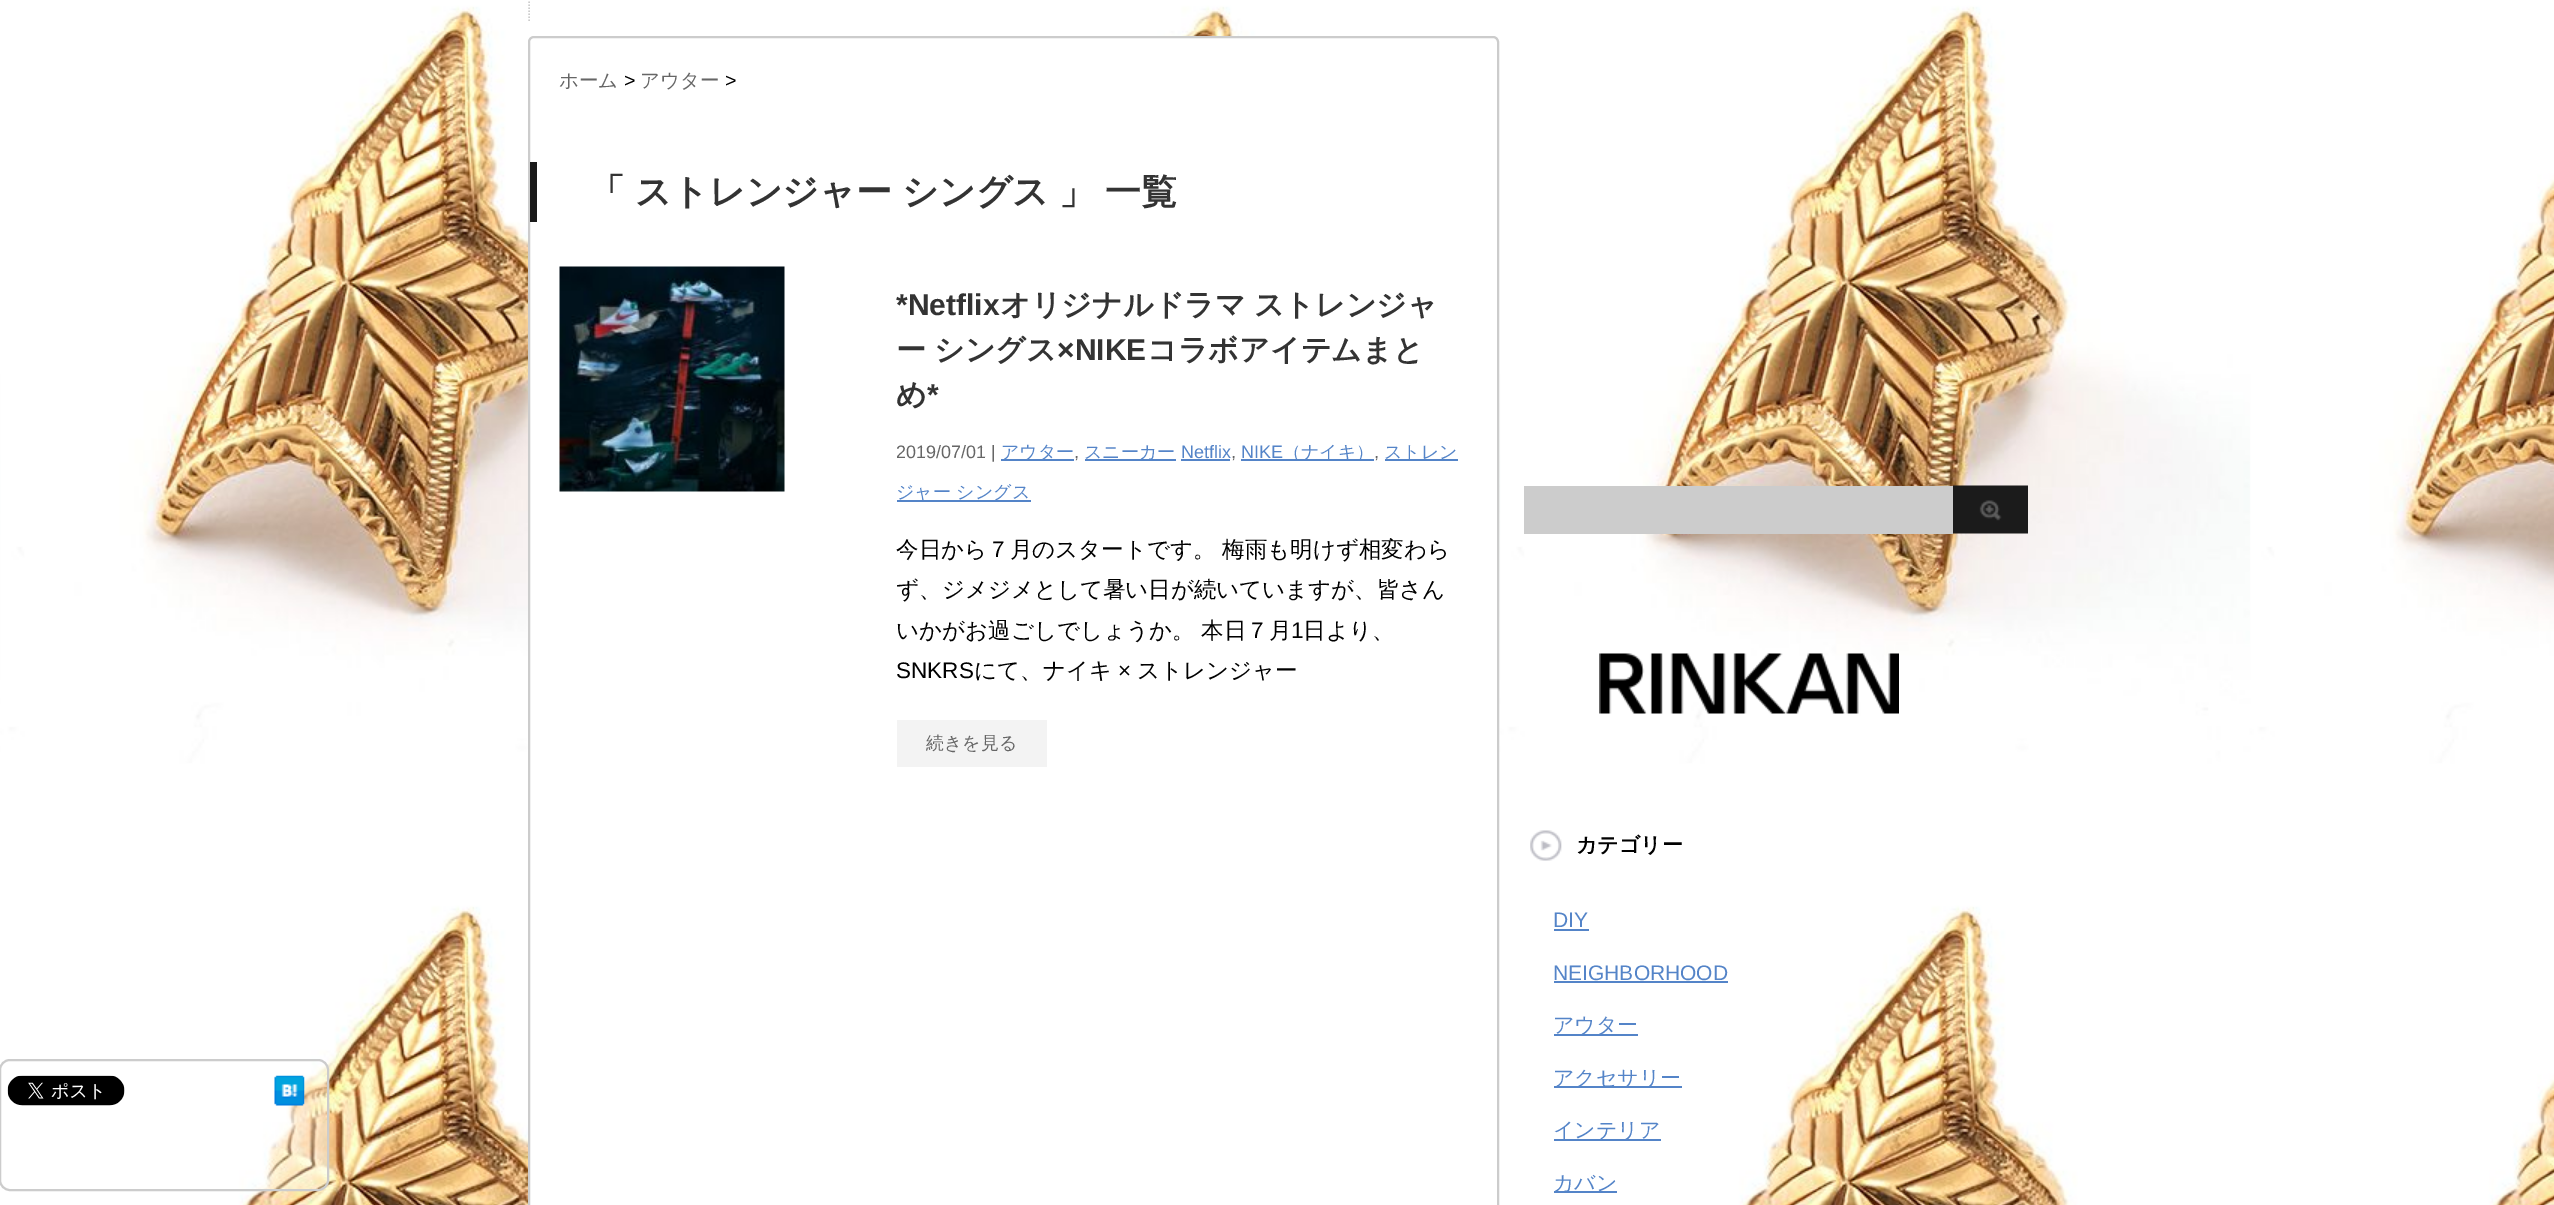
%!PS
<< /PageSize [2554 1205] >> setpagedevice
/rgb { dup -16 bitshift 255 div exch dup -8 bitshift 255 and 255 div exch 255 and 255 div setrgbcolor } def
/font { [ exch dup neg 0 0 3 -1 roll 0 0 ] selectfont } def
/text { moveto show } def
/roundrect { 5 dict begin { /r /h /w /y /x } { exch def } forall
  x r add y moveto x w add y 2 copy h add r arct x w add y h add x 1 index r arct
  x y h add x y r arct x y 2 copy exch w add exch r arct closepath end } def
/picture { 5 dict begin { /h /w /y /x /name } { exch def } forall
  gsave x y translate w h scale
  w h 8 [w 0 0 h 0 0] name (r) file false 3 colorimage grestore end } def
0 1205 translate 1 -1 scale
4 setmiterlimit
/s1 { /WenQuanYiZenHei-Medium 19.5 font 16#666666 rgb } def
/s2 { /LiberationSans-Regular 19.5 font 16#000000 rgb } def
/s3 { /WenQuanYiZenHei-Bold 36 font 16#333333 rgb } def
/s4 { /LiberationSans-Bold 30 font 16#333333 rgb } def
/s5 { /WenQuanYiZenHei-Bold 30 font 16#333333 rgb } def
/s6 { /LiberationSans-Regular 18 font 16#666666 rgb } def
/s7 { /WenQuanYiZenHei-Medium 18 font 16#5484C8 rgb } def
/s8 { /LiberationSans-Regular 18 font 16#5484C8 rgb } def
/s9 { /WenQuanYiZenHei-Medium 22.5 font 16#000000 rgb } def
/s10 { /LiberationSans-Regular 22.5 font 16#000000 rgb } def
/s11 { /WenQuanYiZenHei-Medium 18 font 16#666666 rgb } def
/s12 { /WenQuanYiZenHei-Bold 21 font 16#000000 rgb } def
/s13 { /LiberationSans-Regular 21 font 16#5484C8 rgb } def
/s14 { /WenQuanYiZenHei-Medium 21 font 16#5484C8 rgb } def
16#FFFFFF rgb
0 0 2554 1205 rectfill
(pic1.raw) 0 0 2554 1205 picture
(pic2.raw) 257 1065 72 126 picture
16#CCCCCC rgb
2 setlinewidth
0 1060 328 130 10 roundrect stroke
(pic3.raw) 7 1075 118 31 picture
(pic4.raw) 274 1075 31 31 picture
1.5 setlinewidth
[1.5 1.5] 0 setdash
529 -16.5 moveto 529 21 lineto stroke
16#FFFFFF rgb
529 37 969 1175 5 roundrect gsave fill grestore
16#CCCCCC rgb
2 setlinewidth
[] 0 setdash
stroke
s1
(ホーム) 559 87 text
s2
(>) 624 87 text
s1
(アウター) 640 87 text
s2
(>) 725 87 text
16#1A1A1A rgb
530 162 7 60 rectfill
s3
(「) 589 204 text
635 204 moveto -1 0 32 (ストレンジャー シングス) widthshow
1059 204 moveto -1 0 32 (」 一覧) widthshow
(pic5.raw) 559 266 226 226 picture
s4
(*Netflix) 896 315 text
/WenQuanYiZenHei-Bold 30 font
1000 315 moveto -1 0 32 (オリジナルドラマ ストレンジャ) widthshow
896 360 moveto -1 0 32 (ー シングス) widthshow
s4
(×NIKE) 1057 360 text
s5
(コラボアイテムまと) 1147 360 text
(め) 896 405 text
s4
(*) 927 405 text
s6
(2019/07/01 |) 896 458 text
16#5484C8 rgb
1001 459 73 2 rectfill
s7
(アウター) 1001 458 text
s6
(,) 1074 458 text
16#5484C8 rgb
1085 459 91 2 rectfill
s7
(スニーカー) 1084 458 text
s8
(Netflix) 1181 458 text
1181 459 49 2 rectfill
s6
(,) 1231 458 text
s8
(NIKE) 1241 458 text
1241 459 133 2 rectfill
s7
(（ナイキ）) 1283 458 text
s6
(,) 1374 458 text
16#5484C8 rgb
1385 459 73 2 rectfill
s7
(ストレン) 1384 458 text
897 500 134 2 rectfill
(ジャー シングス) 896 498 text
s9
(今日から７月のスタートです。) 896 557 text
(梅雨も明けず相変わら) 1222 557 text
(ず、ジメジメとして暑い日が続いていますが、皆さん) 896 597 text
(いかがお過ごしでしょうか。) 896 638 text
(本日７月) 1201 638 text
s10
(1) 1291 638 text
s9
(日より、) 1303 638 text
s10
(SNKRS) 896 678 text
s9
(にて、ナイキ) 974 678 text
s10
(×) 1118 678 text
s9
(ストレンジャー) 1137 678 text
16#F3F3F3 rgb
897 720 150 47 rectfill
s11
(続きを見る) 926 749 text
16#CCCCCC rgb
1524 486 429 48 rectfill
(pic6.raw) 1953 485 75 49 picture
(pic7.raw) 1599 653 300 61 picture
(pic8.raw) 1530 830 32 31 picture
s12
(カテゴリー) 1576 852 text
s13
(DIY) 1553 927 text
1554 929 35 2 rectfill
(NEIGHBORHOOD) 1553 980 text
1554 981 174 2 rectfill
1554 1034 84 2 rectfill
s14
(アウター) 1553 1032 text
1554 1086 128 2 rectfill
(アクセサリー) 1553 1085 text
1554 1139 107 2 rectfill
(インテリア) 1553 1137 text
1554 1191 63 2 rectfill
(カバン) 1553 1190 text
showpage
